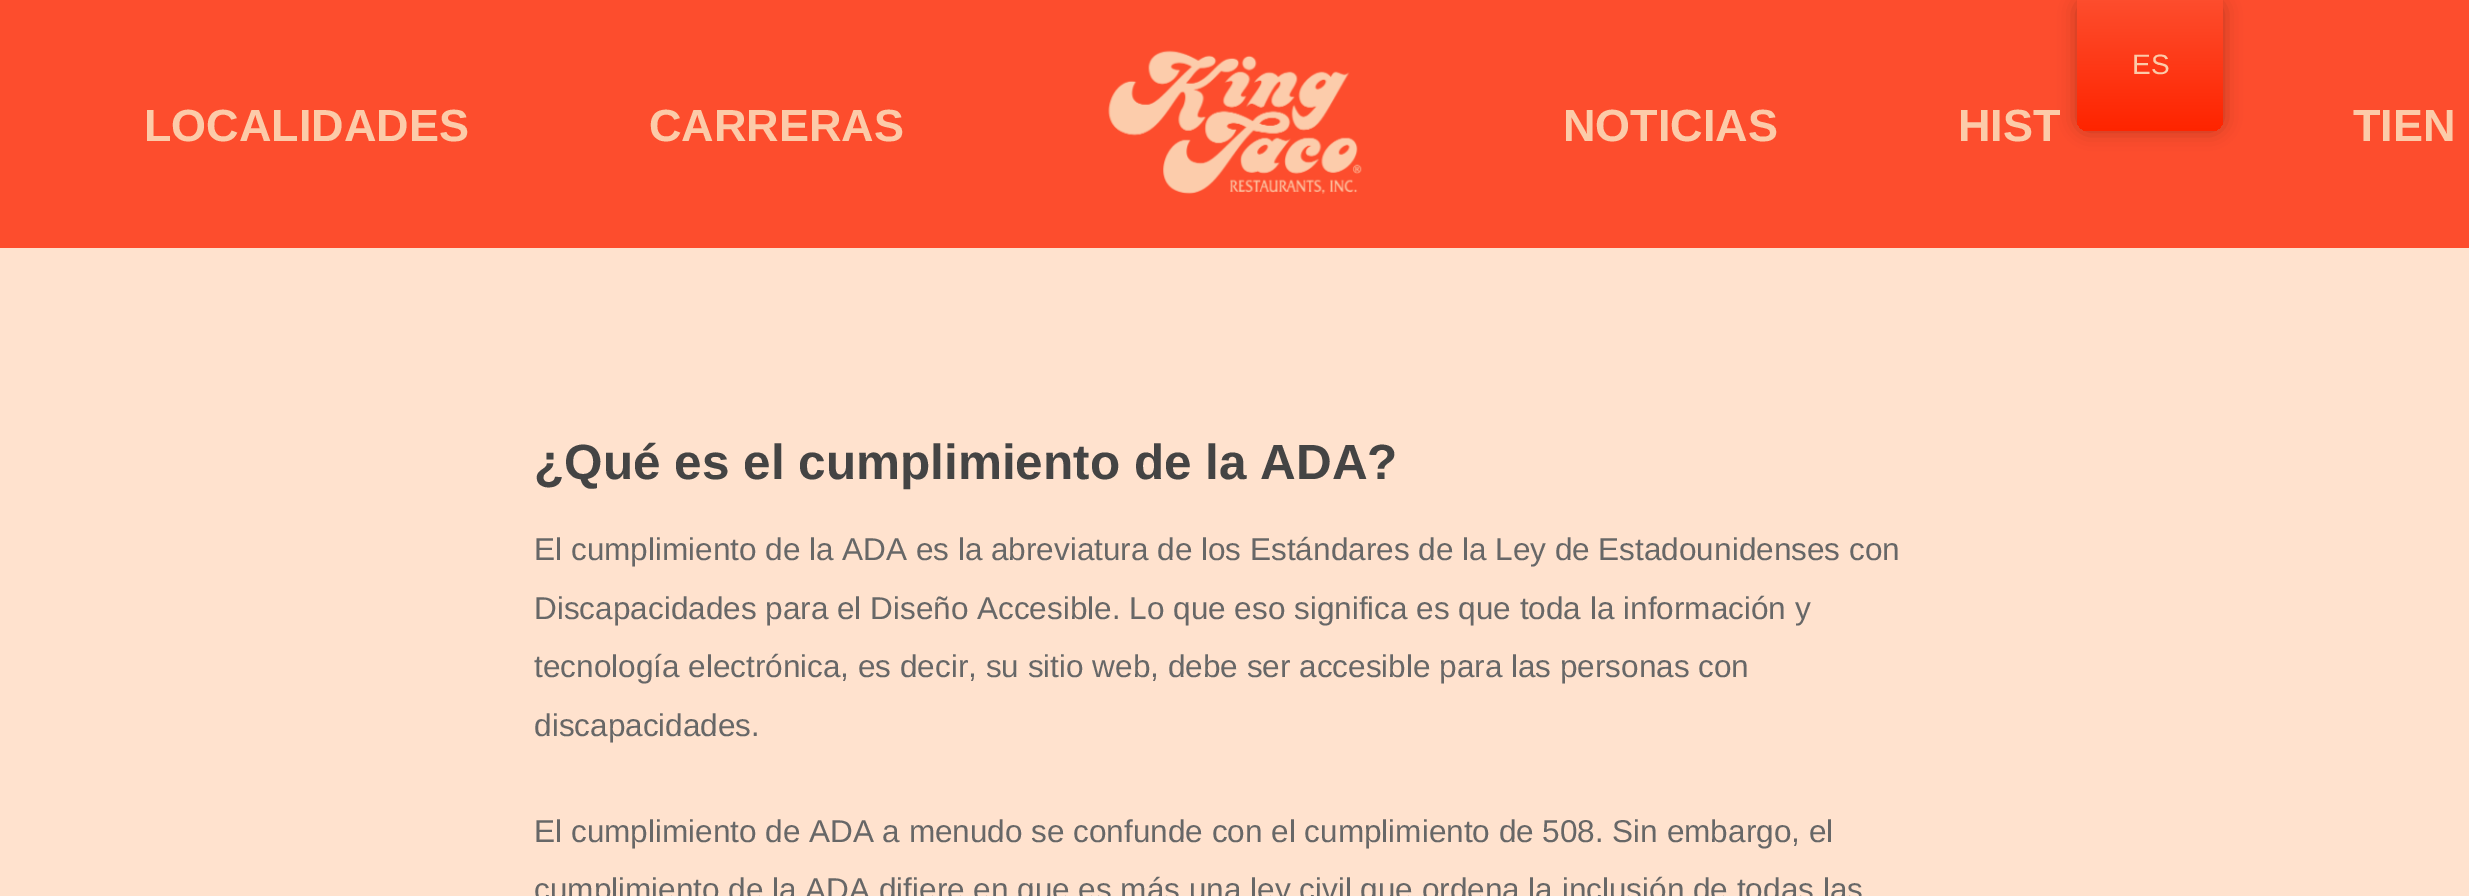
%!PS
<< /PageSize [2469 896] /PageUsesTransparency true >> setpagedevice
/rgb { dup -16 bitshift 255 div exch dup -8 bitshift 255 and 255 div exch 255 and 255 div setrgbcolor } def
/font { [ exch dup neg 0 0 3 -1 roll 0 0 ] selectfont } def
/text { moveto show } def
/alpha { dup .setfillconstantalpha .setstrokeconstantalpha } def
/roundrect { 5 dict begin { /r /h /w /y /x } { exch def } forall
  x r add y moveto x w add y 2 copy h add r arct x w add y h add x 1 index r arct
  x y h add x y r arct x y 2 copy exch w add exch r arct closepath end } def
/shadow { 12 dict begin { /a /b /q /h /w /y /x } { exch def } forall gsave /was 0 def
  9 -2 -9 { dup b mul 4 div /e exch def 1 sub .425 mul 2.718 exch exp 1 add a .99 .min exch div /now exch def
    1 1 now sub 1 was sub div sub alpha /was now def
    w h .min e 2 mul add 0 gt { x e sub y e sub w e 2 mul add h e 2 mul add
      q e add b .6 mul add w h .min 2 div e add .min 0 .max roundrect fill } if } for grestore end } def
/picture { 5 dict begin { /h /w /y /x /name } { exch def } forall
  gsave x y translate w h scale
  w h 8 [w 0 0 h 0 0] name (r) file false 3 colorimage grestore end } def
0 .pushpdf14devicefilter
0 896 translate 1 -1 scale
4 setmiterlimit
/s1 { /LiberationSans-Regular 28 font 16#FCCBA9 rgb } def
/s2 { /LiberationSans-Bold 45 font 16#FCCBA9 rgb } def
/s3 { /LiberationSans-Bold 49.5 font 16#444444 rgb } def
/s4 { /LiberationSans-Regular 31.5 font 16#676767 rgb } def
16#FD4D2D rgb
0 0 2469 896 rectfill
16#000000 rgb
2077 0 146 131 11 9 0.25 shadow
gsave 2077 0 moveto 2223 0 lineto 2223 120 lineto 2223 126 2218 131 2212 131 curveto 2088 131 lineto 2082 131 2077 126 2077 120 curveto closepath clip newpath
<< /ShadingType 2 /ColorSpace /DeviceRGB /Coords [2150 131 2150 0] /Extend [true true] /Function << /FunctionType 2 /Domain [0 1] /C0 [1 0.141 0] /C1 [0.992 0.302 0.176] /N 1 >> >> shfill grestore
s1
(ES) 2132 74 text
(pic1.raw) 1108 50 254 144 picture
s2
(LOCALIDADES) 144 141 text
(CARRERAS) 649 141 text
(NOTICIAS) 1563 141 text
(HIST) 1958 141 text
(TIEN) 2353 141 text
16#FFE2CE rgb
0 248 2469 648 rectfill
s3
(¿Qué es el cumplimiento de la ADA?) 534 479 text
s4
(El cumplimiento de la ADA es la abreviatura de los Estándares de la Ley de Estadounidenses con) 534 560 text
(Discapacidades para el Diseño Accesible. Lo que eso significa es que toda la información y) 534 619 text
(tecnología electrónica, es decir, su sitio web, debe ser accesible para las personas con) 534 677 text
(discapacidades.) 534 736 text
(El cumplimiento de ADA a menudo se confunde con el cumplimiento de 508. Sin embargo, el) 534 842 text
(cumplimiento de la ADA difiere en que es más una ley civil que ordena la inclusión de todas las) 534 900 text
.poppdf14devicefilter showpage
